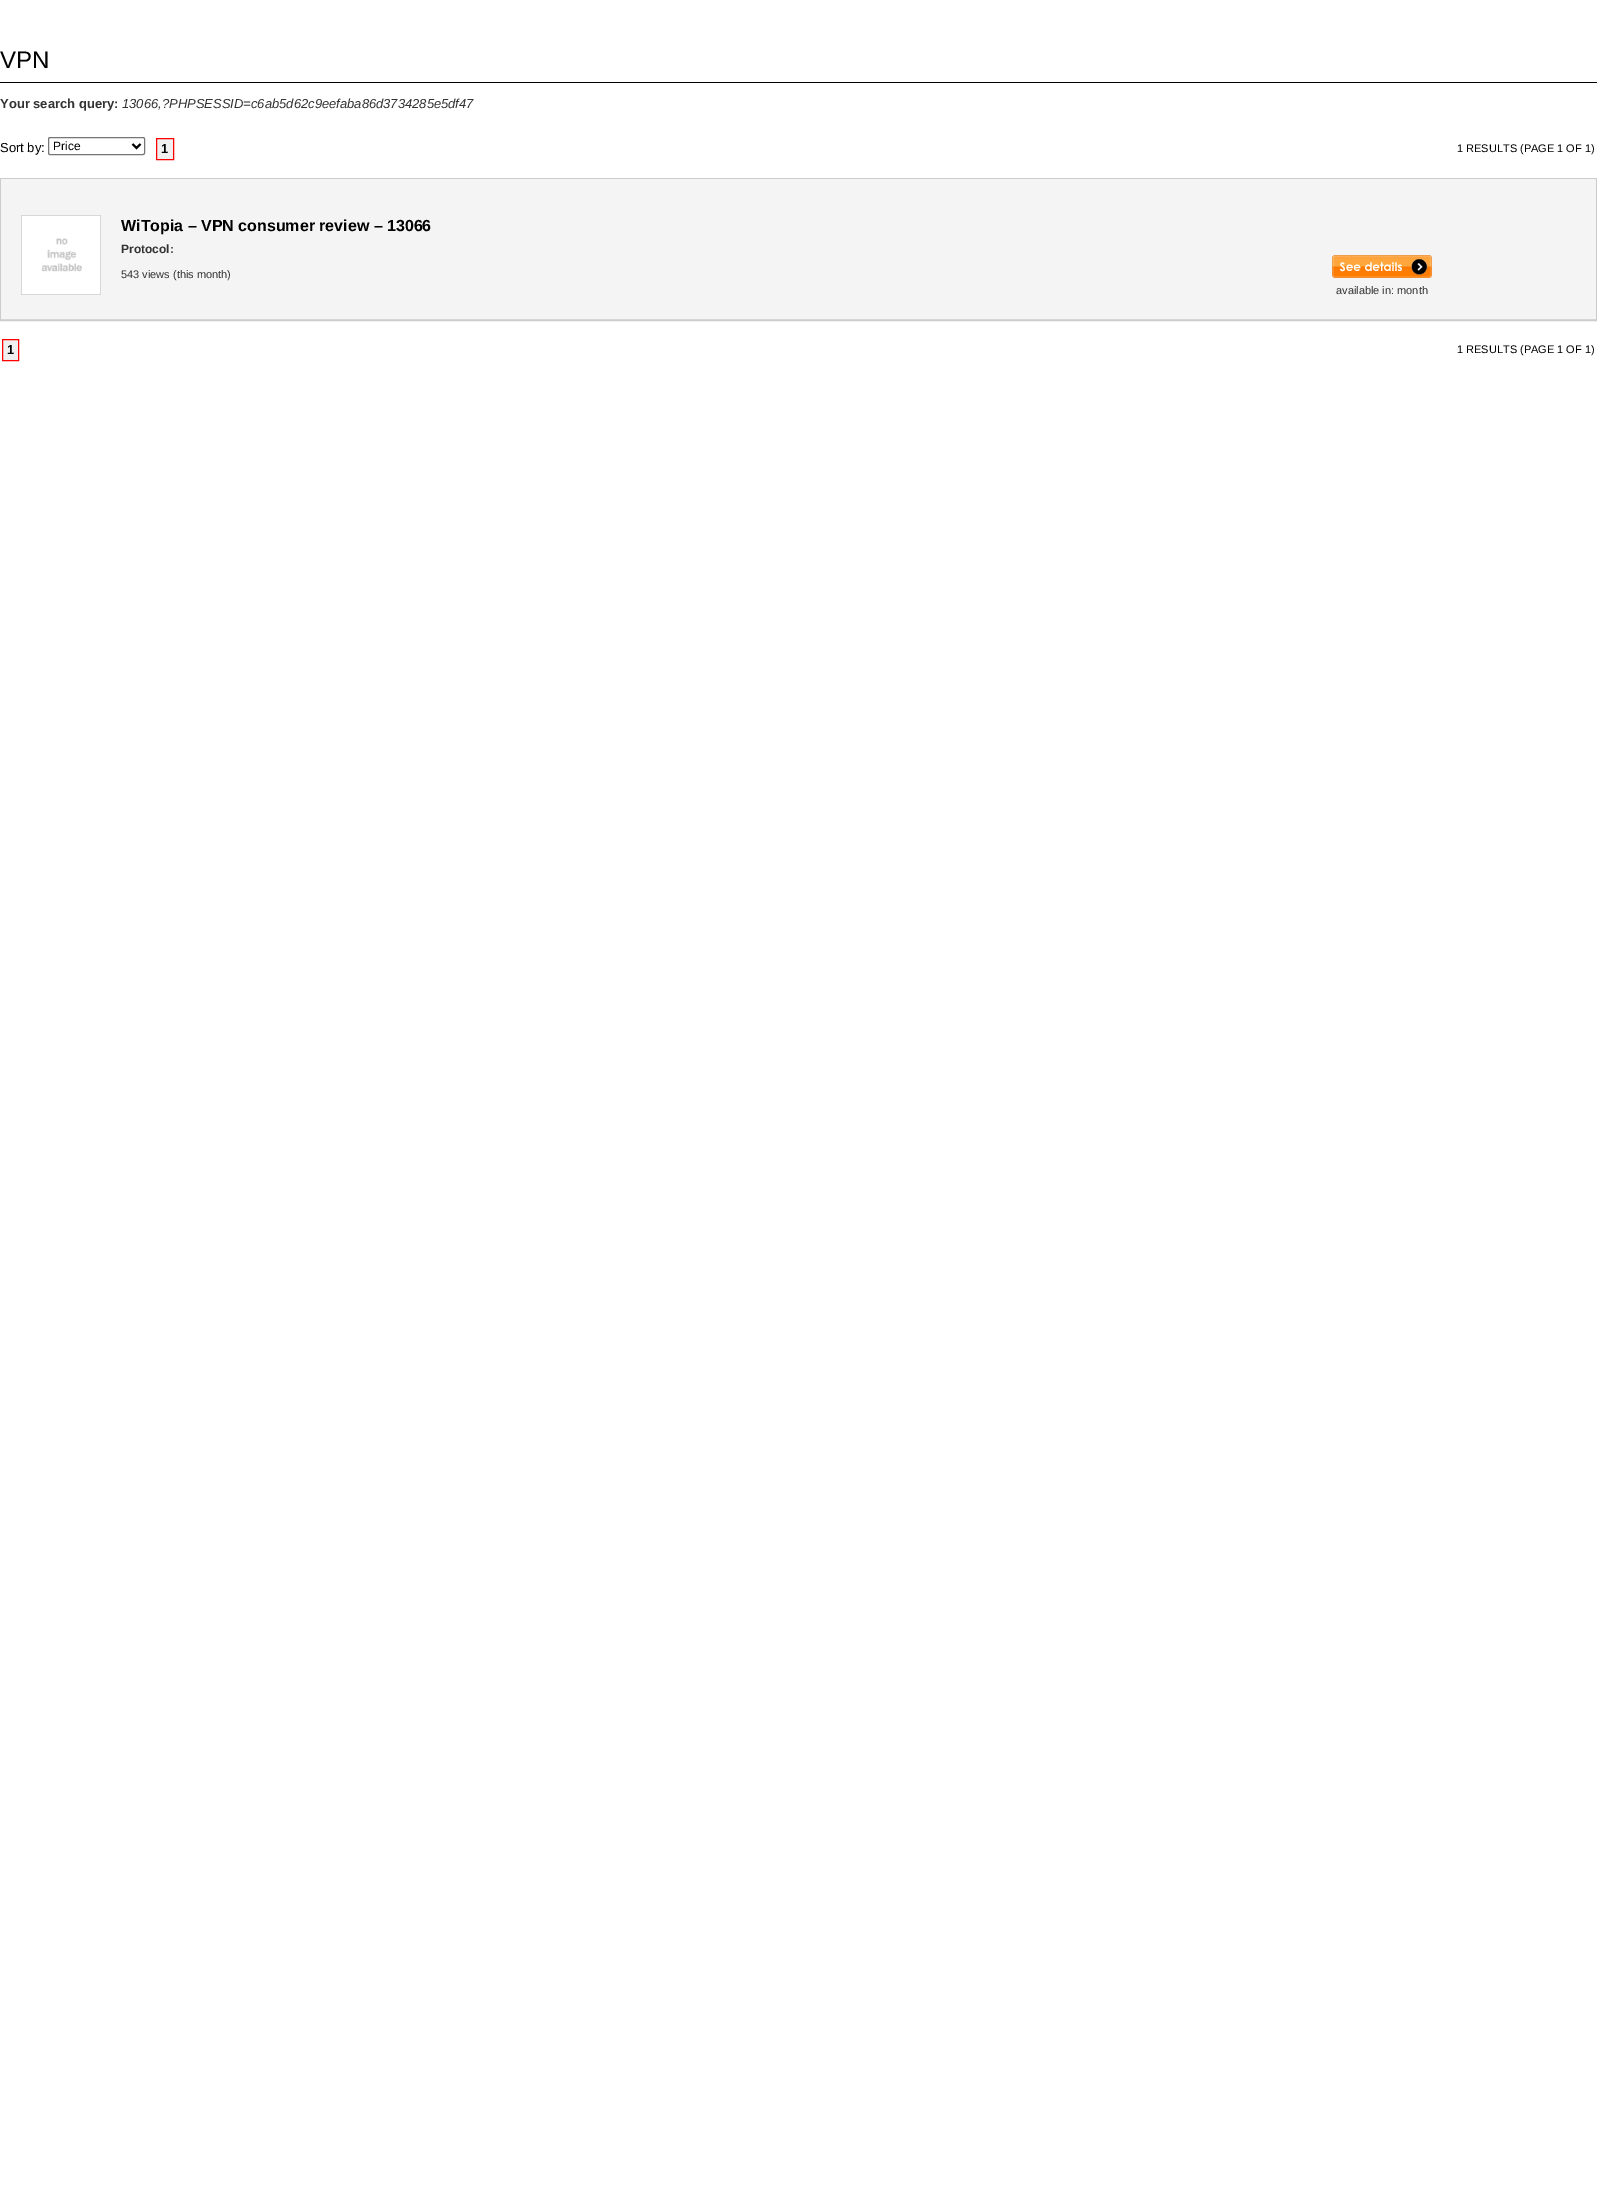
%!PS
<< /PageSize [1597 2194] >> setpagedevice
/rgb { dup -16 bitshift 255 div exch dup -8 bitshift 255 and 255 div exch 255 and 255 div setrgbcolor } def
/font { [ exch dup neg 0 0 3 -1 roll 0 0 ] selectfont } def
/text { moveto show } def
/roundrect { 5 dict begin { /r /h /w /y /x } { exch def } forall
  x r add y moveto x w add y 2 copy h add r arct x w add y h add x 1 index r arct
  x y h add x y r arct x y 2 copy exch w add exch r arct closepath end } def
/picture { 5 dict begin { /h /w /y /x /name } { exch def } forall
  gsave x y translate w h scale
  w h 8 [w 0 0 h 0 0] name (r) file false 3 colorimage grestore end } def
0 2194 translate 1 -1 scale
4 setmiterlimit
/s1 { /LiberationSans-Regular 24 font 16#000000 rgb } def
/s2 { /LiberationSans-Bold 13 font 16#333333 rgb } def
/s3 { /LiberationSans-Italic 13 font 16#333333 rgb } def
/s4 { /LiberationSans-Regular 13 font 16#000000 rgb } def
/s5 { /LiberationSans-Regular 12 font 16#000000 rgb } def
/s6 { /LiberationSans-Bold 13 font 16#000000 rgb } def
/s7 { /LiberationSans-Regular 11 font 16#000000 rgb } def
/s8 { /LiberationSans-Bold 16 font 16#000000 rgb } def
/s9 { /LiberationSans-Bold 12 font 16#333333 rgb } def
/s10 { /LiberationSans-Regular 11 font 16#333333 rgb } def
16#FFFFFF rgb
0 0 1597 2194 rectfill
s1
(VPN) 0 68 text
0 82 1597 1 rectfill
s2
(Your search query:) 0 108 text
s3
(13066,?PHPSESSID=c6ab5d62c9eefaba86d3734285e5df47) 122 108 text
s4
(Sort by:) 0 152 text
16#767676 rgb
48.5 137.5 96 17 1.5 roundrect stroke
16#000000 rgb
2 setlinewidth
132.5 144 moveto 136.5 148 lineto 140.5 144 lineto stroke
s5
(Price) 53 150 text
16#F0F0F0 rgb
156.5 138.5 moveto 173.5 138.5 lineto 173.5 159.5 lineto 156.5 159.5 lineto closepath gsave fill grestore
16#FF0000 rgb
1 setlinewidth
stroke
s6
(1) 161 153 text
s7
(1 RESULTS \(PAGE 1 OF 1\)) 1457 152 text
16#CCCCCC rgb
0.5 178.5 1596 142 rectstroke
16#F4F4F4 rgb
1 179 1595 140 rectfill
16#D5D5D5 rgb
1 319 1595 1 rectfill
(pic1.raw) 21 215 80 80 picture
s8
(WiTopia – VPN consumer review – 13066) 121 231 text
s9
(Protocol:) 121 253 text
s10
(543 views \(this month\)) 121 278 text
(pic2.raw) 1332 255 100 23 picture
(available in: month) 1336 294 text
16#F0F0F0 rgb
2.5 339.5 moveto 18.5 339.5 lineto 18.5 360.5 lineto 2.5 360.5 lineto closepath gsave fill grestore
16#FF0000 rgb
stroke
s6
(1) 7 354 text
s7
(1 RESULTS \(PAGE 1 OF 1\)) 1457 353 text
showpage
